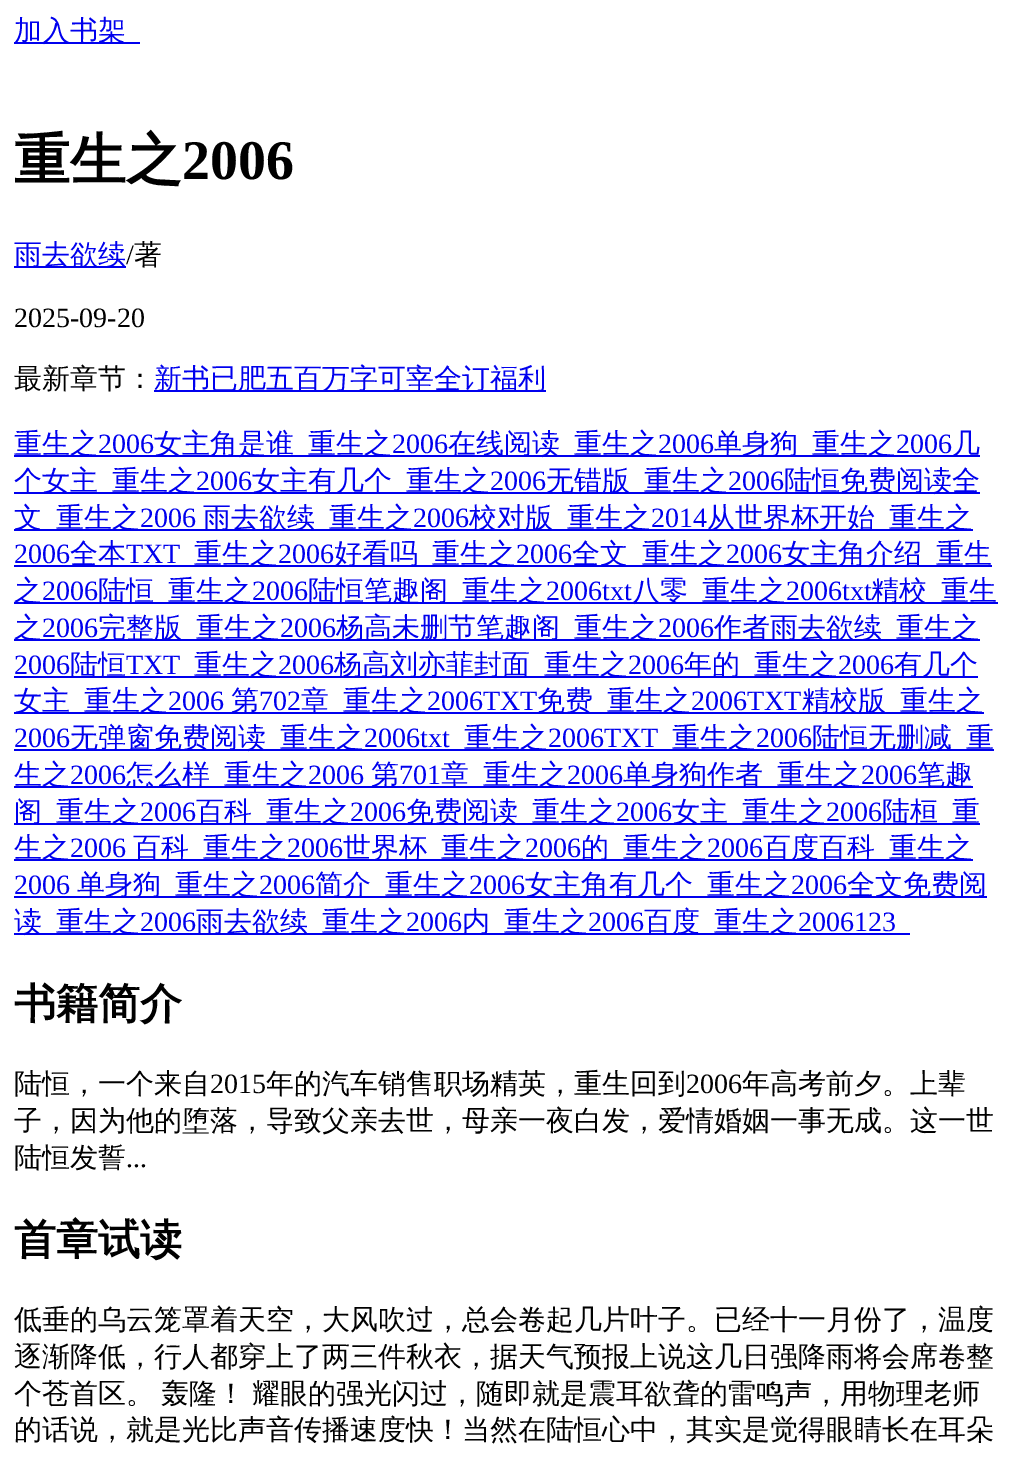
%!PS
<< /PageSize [1018 1466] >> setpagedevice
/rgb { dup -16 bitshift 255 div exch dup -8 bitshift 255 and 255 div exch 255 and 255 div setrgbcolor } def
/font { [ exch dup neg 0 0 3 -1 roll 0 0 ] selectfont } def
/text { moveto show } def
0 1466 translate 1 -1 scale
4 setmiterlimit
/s1 { /WenQuanYiZenHei-Medium 28 font 16#0000EE rgb } def
/s2 { /WenQuanYiZenHei-Bold 56 font 16#000000 rgb } def
/s3 { /LiberationSerif-Bold 56 font 16#000000 rgb } def
/s4 { /LiberationSerif-Regular 28 font 16#000000 rgb } def
/s5 { /WenQuanYiZenHei-Medium 28 font 16#000000 rgb } def
/s6 { /LiberationSerif-Regular 28 font 16#0000EE rgb } def
/s7 { /WenQuanYiZenHei-Bold 42 font 16#000000 rgb } def
16#FFFFFF rgb
0 0 1018 1466 rectfill
16#0000EE rgb
14 42 126 2 rectfill
s1
(加入书架) 14 40 text
s2
(重生之) 14 179 text
s3
(2006) 182 179 text
16#0000EE rgb
14 266 112 2 rectfill
s1
(雨去欲续) 14 264 text
s4
(/) 126 264 text
s5
(著) 134 264 text
s4
(2025-09-20) 14 327 text
s5
(最新章节：) 14 388 text
16#0000EE rgb
154 390 392 2 rectfill
(新书已肥五百万字可宰全订福利) 154 388 text
14 455 966 2 rectfill
(重生之) 14 453 text
s6
(2006) 98 453 text
s1
(女主角是谁) 154 453 text
(重生之) 308 453 text
s6
(2006) 392 453 text
s1
(在线阅读) 448 453 text
(重生之) 574 453 text
s6
(2006) 658 453 text
s1
(单身狗) 714 453 text
(重生之) 812 453 text
s6
(2006) 896 453 text
s1
(几) 952 453 text
14 492 966 2 rectfill
(个女主) 14 490 text
(重生之) 112 490 text
s6
(2006) 196 490 text
s1
(女主有几个) 252 490 text
(重生之) 406 490 text
s6
(2006) 490 490 text
s1
(无错版) 546 490 text
(重生之) 644 490 text
s6
(2006) 728 490 text
s1
(陆恒免费阅读全) 784 490 text
14 529 959 2 rectfill
(文) 14 527 text
(重生之) 56 527 text
s6
(2006) 140 527 text
s1
(雨去欲续) 203 527 text
(重生之) 329 527 text
s6
(2006) 413 527 text
s1
(校对版) 469 527 text
(重生之) 567 527 text
s6
(2014) 651 527 text
s1
(从世界杯开始) 707 527 text
(重生之) 889 527 text
s6
(2006) 14 563 text
14 565 978 2 rectfill
s1
(全本) 70 563 text
s6
(TXT) 126 563 text
s1
(重生之) 194 563 text
s6
(2006) 278 563 text
s1
(好看吗) 334 563 text
(重生之) 432 563 text
s6
(2006) 516 563 text
s1
(全文) 572 563 text
(重生之) 642 563 text
s6
(2006) 726 563 text
s1
(女主角介绍) 782 563 text
(重生) 936 563 text
14 602 984 2 rectfill
(之) 14 600 text
s6
(2006) 42 600 text
s1
(陆恒) 98 600 text
(重生之) 168 600 text
s6
(2006) 252 600 text
s1
(陆恒笔趣阁) 308 600 text
(重生之) 462 600 text
s6
(2006txt) 546 600 text
s1
(八零) 632 600 text
(重生之) 702 600 text
s6
(2006txt) 786 600 text
s1
(精校) 871 600 text
(重生) 941 600 text
14 639 966 2 rectfill
(之) 14 637 text
s6
(2006) 42 637 text
s1
(完整版) 98 637 text
(重生之) 196 637 text
s6
(2006) 280 637 text
s1
(杨高未删节笔趣阁) 336 637 text
(重生之) 574 637 text
s6
(2006) 658 637 text
s1
(作者雨去欲续) 714 637 text
(重生之) 896 637 text
s6
(2006) 14 674 text
14 676 964 2 rectfill
s1
(陆恒) 70 674 text
s6
(TXT) 126 674 text
s1
(重生之) 194 674 text
s6
(2006) 278 674 text
s1
(杨高刘亦菲封面) 334 674 text
(重生之) 544 674 text
s6
(2006) 628 674 text
s1
(年的) 684 674 text
(重生之) 754 674 text
s6
(2006) 838 674 text
s1
(有几个) 894 674 text
14 712 970 2 rectfill
(女主) 14 710 text
(重生之) 84 710 text
s6
(2006) 168 710 text
s1
(第) 231 710 text
s6
(702) 259 710 text
s1
(章) 301 710 text
(重生之) 343 710 text
s6
(2006TXT) 427 710 text
s1
(免费) 537 710 text
(重生之) 607 710 text
s6
(2006TXT) 691 710 text
s1
(精校版) 802 710 text
(重生之) 900 710 text
s6
(2006) 14 747 text
14 749 980 2 rectfill
s1
(无弹窗免费阅读) 70 747 text
(重生之) 280 747 text
s6
(2006txt) 364 747 text
s1
(重生之) 464 747 text
s6
(2006TXT) 548 747 text
s1
(重生之) 672 747 text
s6
(2006) 756 747 text
s1
(陆恒无删减) 812 747 text
(重) 966 747 text
14 786 959 2 rectfill
(生之) 14 784 text
s6
(2006) 70 784 text
s1
(怎么样) 126 784 text
(重生之) 224 784 text
s6
(2006) 308 784 text
s1
(第) 371 784 text
s6
(701) 399 784 text
s1
(章) 441 784 text
(重生之) 483 784 text
s6
(2006) 567 784 text
s1
(单身狗作者) 623 784 text
(重生之) 777 784 text
s6
(2006) 861 784 text
s1
(笔趣) 917 784 text
14 823 966 2 rectfill
(阁) 14 821 text
(重生之) 56 821 text
s6
(2006) 140 821 text
s1
(百科) 196 821 text
(重生之) 266 821 text
s6
(2006) 350 821 text
s1
(免费阅读) 406 821 text
(重生之) 532 821 text
s6
(2006) 616 821 text
s1
(女主) 672 821 text
(重生之) 742 821 text
s6
(2006) 826 821 text
s1
(陆桓) 882 821 text
(重) 952 821 text
14 859 959 2 rectfill
(生之) 14 857 text
s6
(2006) 70 857 text
s1
(百科) 133 857 text
(重生之) 203 857 text
s6
(2006) 287 857 text
s1
(世界杯) 343 857 text
(重生之) 441 857 text
s6
(2006) 525 857 text
s1
(的) 581 857 text
(重生之) 623 857 text
s6
(2006) 707 857 text
s1
(百度百科) 763 857 text
(重生之) 889 857 text
s6
(2006) 14 894 text
14 896 973 2 rectfill
s1
(单身狗) 77 894 text
(重生之) 175 894 text
s6
(2006) 259 894 text
s1
(简介) 315 894 text
(重生之) 385 894 text
s6
(2006) 469 894 text
s1
(女主角有几个) 525 894 text
(重生之) 707 894 text
s6
(2006) 791 894 text
s1
(全文免费阅) 847 894 text
14 933 896 2 rectfill
(读) 14 931 text
(重生之) 56 931 text
s6
(2006) 140 931 text
s1
(雨去欲续) 196 931 text
(重生之) 322 931 text
s6
(2006) 406 931 text
s1
(内) 462 931 text
(重生之) 504 931 text
s6
(2006) 588 931 text
s1
(百度) 644 931 text
(重生之) 714 931 text
s6
(2006123) 798 931 text
s7
(书籍简介) 14 1018 text
s5
(陆恒，一个来自) 14 1093 text
s4
(2015) 210 1093 text
s5
(年的汽车销售职场精英，重生回到) 266 1093 text
s4
(2006) 686 1093 text
s5
(年高考前夕。上辈) 742 1093 text
(子，因为他的堕落，导致父亲去世，母亲一夜白发，爱情婚姻一事无成。这一世) 14 1130 text
(陆恒发誓) 14 1167 text
s4
(...) 126 1167 text
s7
(首章试读) 14 1254 text
s5
(低垂的乌云笼罩着天空，大风吹过，总会卷起几片叶子。已经十一月份了，温度) 14 1329 text
(逐渐降低，行人都穿上了两三件秋衣，据天气预报上说这几日强降雨将会席卷整) 14 1366 text
(个苍首区。) 14 1403 text
(轰隆！) 161 1403 text
(耀眼的强光闪过，随即就是震耳欲聋的雷鸣声，用物理老师) 252 1403 text
(的话说，就是光比声音传播速度快！当然在陆恒心中，其实是觉得眼睛长在耳朵) 14 1439 text
showpage
